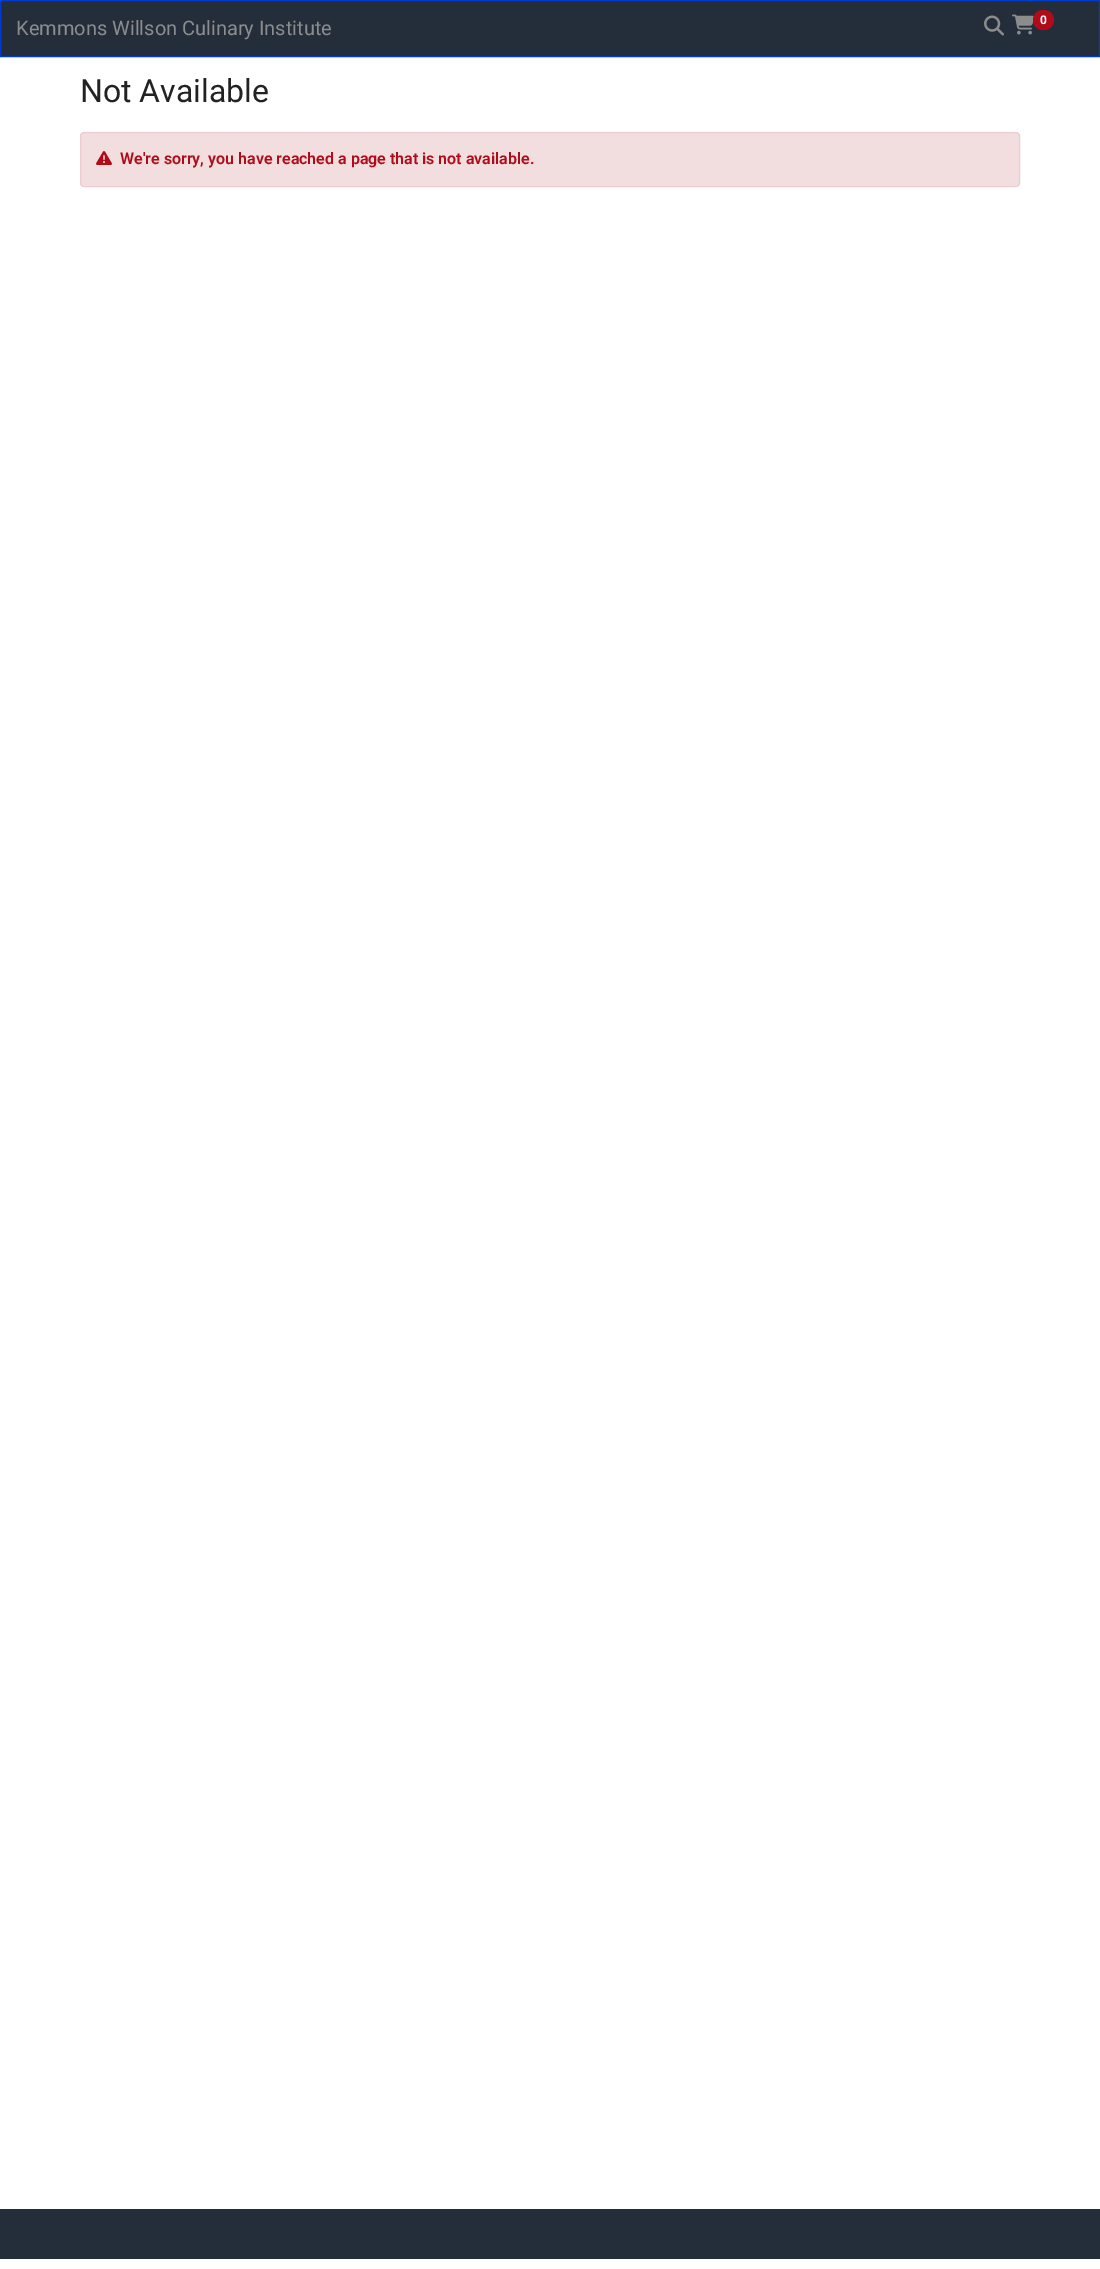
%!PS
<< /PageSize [1100 2269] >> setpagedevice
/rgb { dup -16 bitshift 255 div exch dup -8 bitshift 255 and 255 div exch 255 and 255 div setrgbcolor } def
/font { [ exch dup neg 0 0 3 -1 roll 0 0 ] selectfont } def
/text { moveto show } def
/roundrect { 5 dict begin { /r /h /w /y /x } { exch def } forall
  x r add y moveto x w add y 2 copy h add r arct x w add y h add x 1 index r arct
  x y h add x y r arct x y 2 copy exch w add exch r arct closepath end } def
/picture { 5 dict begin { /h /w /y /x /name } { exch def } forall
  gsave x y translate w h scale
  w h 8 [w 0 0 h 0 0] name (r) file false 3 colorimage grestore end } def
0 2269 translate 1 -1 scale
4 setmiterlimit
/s1 { /Roboto-Regular 20 font 16#8C8C8C rgb } def
/s2 { /Roboto-Bold 12 font 16#FFFFFF rgb } def
/s3 { /Roboto-Regular 32 font 16#222222 rgb } def
/s4 { /Roboto-SemiBold 16 font 16#B10B19 rgb } def
16#FFFFFF rgb
0 0 1100 2269 rectfill
16#242E3A rgb
0.5 0.5 moveto 1099.5 0.5 lineto 1099.5 56.5 lineto 0.5 56.5 lineto closepath gsave fill grestore
16#003BD1 rgb
stroke
s1
(Kemmons Willson Culinary Institute) 16 35 text
(pic1.raw) 984 15 20 21 picture
(pic2.raw) 1012 14 22 21 picture
16#B10B19 rgb
1033 10 21 20 10 roundrect fill
s2
(0) 1040 24 text
s3
(Not Available) 80 102 text
16#F2DEDE rgb
80.5 132.5 939 54 3.5 roundrect gsave fill grestore
16#EBCCD1 rgb
stroke
(pic3.raw) 96 151 16 14 picture
s4
(We're sorry, you have reached a page that is not available.) 120 164 text
16#242E3A rgb
0 2209 1100 50 rectfill
showpage
